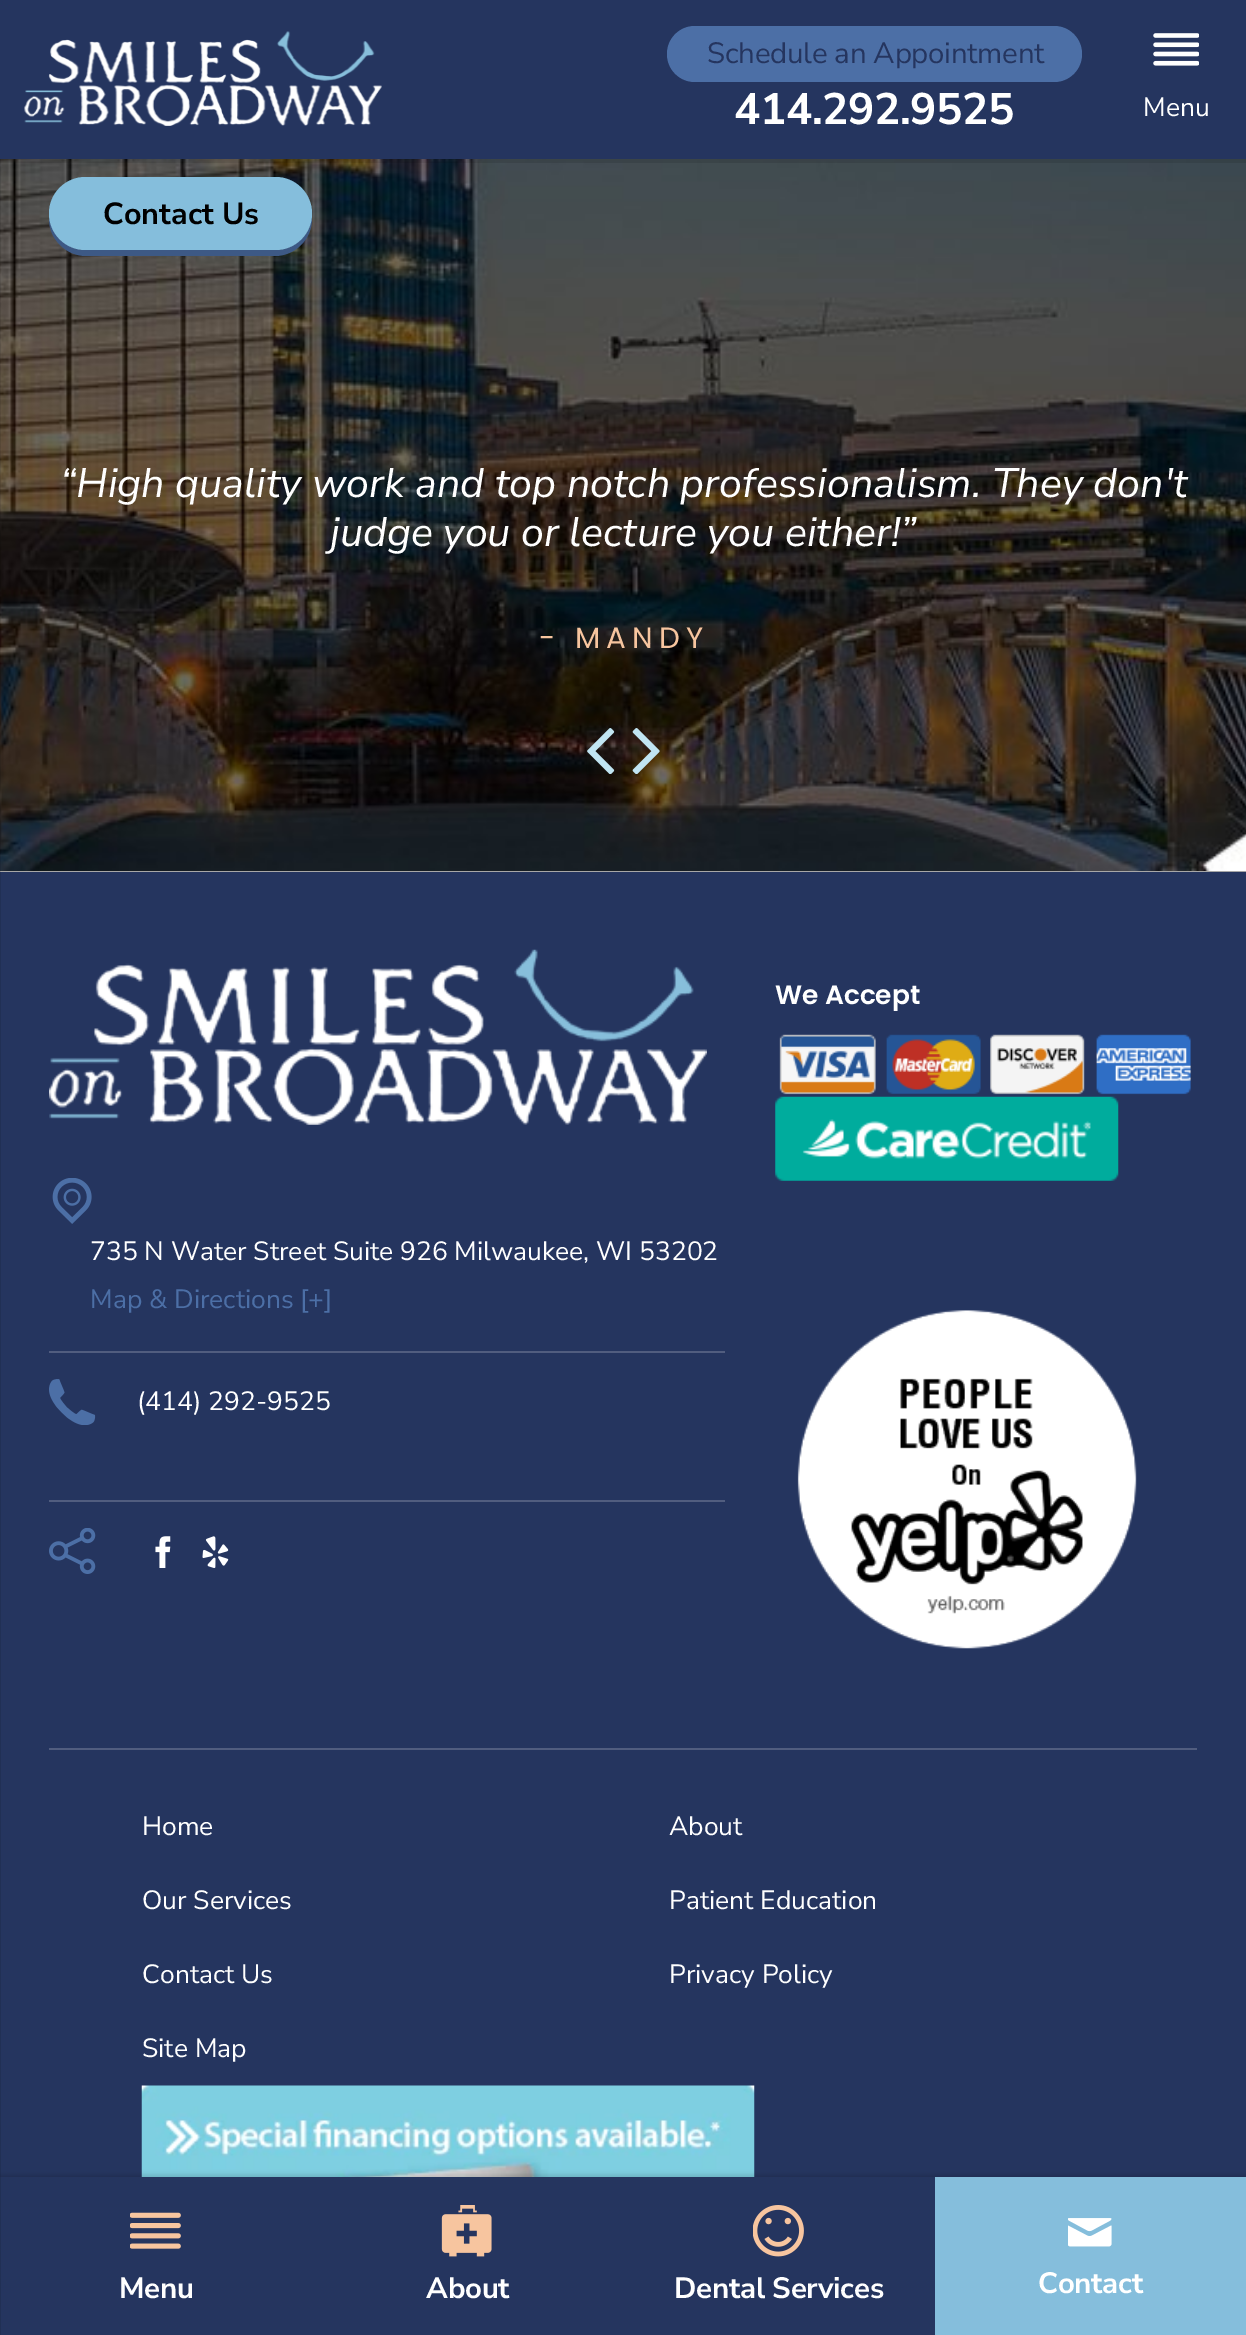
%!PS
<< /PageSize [1246 2335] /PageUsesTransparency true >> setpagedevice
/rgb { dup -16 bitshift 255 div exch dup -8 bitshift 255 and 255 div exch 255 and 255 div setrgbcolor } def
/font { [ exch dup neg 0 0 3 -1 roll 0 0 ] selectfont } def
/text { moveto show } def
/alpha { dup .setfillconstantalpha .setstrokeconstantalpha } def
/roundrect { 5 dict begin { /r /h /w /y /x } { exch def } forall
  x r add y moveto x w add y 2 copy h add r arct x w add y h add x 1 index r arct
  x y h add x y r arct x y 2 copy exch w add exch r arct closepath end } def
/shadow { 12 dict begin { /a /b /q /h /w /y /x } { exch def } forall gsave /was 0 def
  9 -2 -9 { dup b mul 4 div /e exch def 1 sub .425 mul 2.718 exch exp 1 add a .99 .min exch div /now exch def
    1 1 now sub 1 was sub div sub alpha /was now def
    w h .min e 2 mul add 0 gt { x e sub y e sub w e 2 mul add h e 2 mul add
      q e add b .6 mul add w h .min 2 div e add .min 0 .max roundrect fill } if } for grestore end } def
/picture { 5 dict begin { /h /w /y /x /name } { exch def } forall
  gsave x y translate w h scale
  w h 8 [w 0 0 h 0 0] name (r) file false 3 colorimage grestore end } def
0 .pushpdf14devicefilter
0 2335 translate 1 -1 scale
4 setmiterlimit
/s1 { /NunitoSans-Regular 26.45 font 16#FFFFFF rgb } def
/s2 { /NunitoSans-Bold 30.5 font 16#000000 rgb } def
/s3 { /NunitoSans-ExtraLightItalic 41.15 font 16#FFFFFF rgb } def
/s4 { /Poppins-SemiBold 26.45 font 16#FFFFFF rgb } def
/s5 { /NunitoSans-Regular 26.45 font 16#4C6FA6 rgb } def
16#A7A7A7 rgb
0 0 1246 2335 rectfill
(pic7.raw) 0 159 1246 712 picture
0.1 alpha
16#000000 rgb
0 159 1246 4 rectfill
1 alpha
16#25355F rgb
0 0 1246 159 rectfill
(pic1.raw) 24 31 358 95 picture
16#4C6FA6 rgb
667 26 415 56 28 roundrect fill
/NunitoSans-Regular 29.4 font
16#25355F rgb
707 63 moveto -0.25 0 (Schedule an Appointment) ashow
/NunitoSans-Bold 44 font
16#FFFFFF rgb
734 124 moveto -0.5 0 (414.292.9525) ashow
(pic2.raw) 1153 33 46 33 picture
s1
(Menu) 1143 116 text
16#25355F rgb
0 872 1246 1305 rectfill
(pic22.raw) 141 2085 614 92 picture
16#000000 rgb
0 2175 1246 160 0 2.5 0.15 shadow
16#25355F rgb
0 2177 935 158 rectfill
0.1 alpha
16#000000 rgb
0 159 1 2176 rectfill
1 alpha
(pic3.raw) 130 2212 51 37 picture
/NunitoSans-Bold 29.4 font
16#FFFFFF rgb
119 2298 moveto -0.25 0 (Menu) ashow
(pic4.raw) 441 2205 51 52 picture
426 2298 moveto -0.25 0 (About) ashow
(pic5.raw) 753 2205 51 52 picture
674 2298 moveto -0.25 0 (Dental Services) ashow
16#85BEDC rgb
935 2177 311 158 rectfill
(pic6.raw) 1068 2218 44 29 picture
16#FFFFFF rgb
1038 2293 moveto -0.25 0 (Contact) ashow
16#3D5985 rgb
49 216 moveto 49 219 lineto 49 239 66 256 86 256 curveto 275 256 lineto 295 256 312 239 312 219 curveto 311 213 lineto 312 214 lineto 312 234 295 250 275 250 curveto 86 250 lineto 66 250 51 235 49 216 curveto closepath fill
16#85BEDC rgb
49 177 263 73 36.5 roundrect fill
s2
(Contact Us) 103 224 text
s3
(“High quality work and top notch professionalism. They don't) 60 497 text
(judge you or lecture you either!”) 330 546 text
/Poppins-Regular 29.4 font
16#F7C59F rgb
539 648 moveto 6 0 (- MANDY) ashow
(pic8.raw) 587 728 28 46 picture
(pic9.raw) 632 728 28 46 picture
s4
(We Accept) 775 1004 text
(pic10.raw) 779 1034 97 61 picture
(pic11.raw) 886 1034 95 60 picture
(pic12.raw) 990 1034 95 61 picture
(pic13.raw) 1096 1034 95 61 picture
(pic14.raw) 775 1096 344 85 picture
(pic15.raw) 797 1310 340 339 picture
(pic16.raw) 49 949 658 176 picture
(pic17.raw) 52 1178 40 46 picture
s1
(735 N Water Street Suite 926 Milwaukee, WI 53202) 90 1260 text
s5
(Map & Directions [+]) 90 1308 text
16#515D7F rgb
49 1351 676 2 rectfill
49 1500 676 2 rectfill
(pic18.raw) 49 1379 47 46 picture
s1
(\(414\) 292-9525) 137 1410 text
(pic19.raw) 49 1528 47 46 picture
(pic20.raw) 155 1536 16 32 picture
(pic21.raw) 202 1536 27 32 picture
16#515D7F rgb
49 1748 1148 2 rectfill
s1
(Home) 142 1835 text
(About) 669 1835 text
(Our Services) 142 1909 text
(Patient Education) 669 1909 text
(Contact Us) 142 1983 text
(Privacy Policy) 669 1983 text
(Site Map) 142 2057 text
.poppdf14devicefilter showpage
